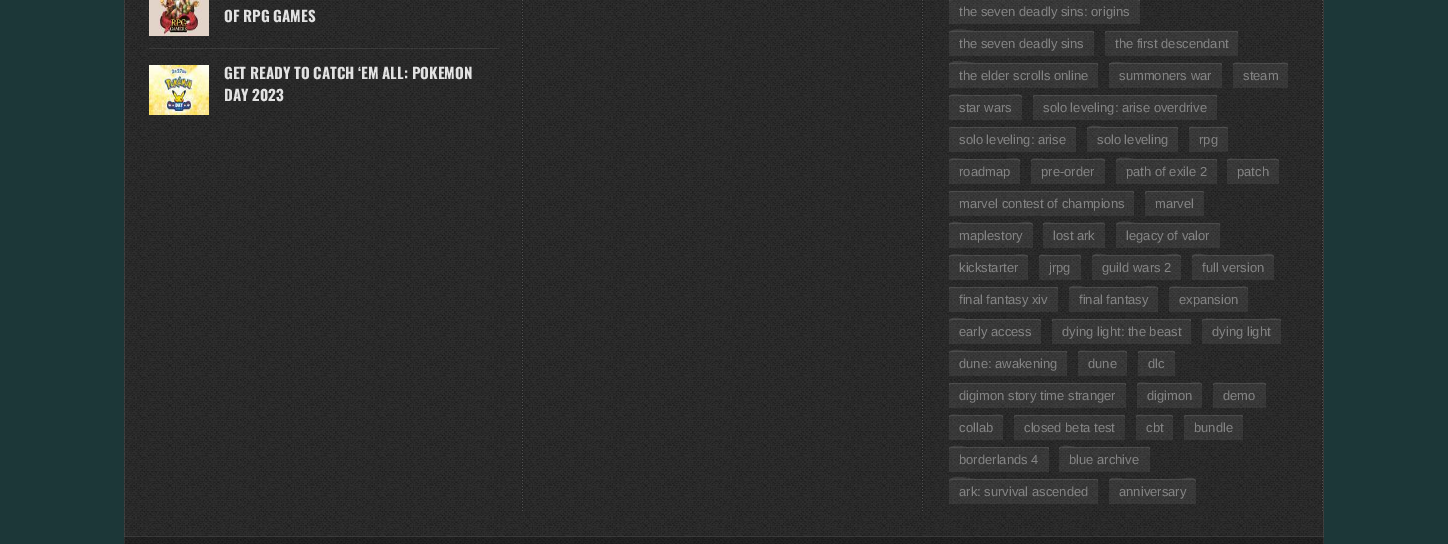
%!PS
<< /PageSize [1448 544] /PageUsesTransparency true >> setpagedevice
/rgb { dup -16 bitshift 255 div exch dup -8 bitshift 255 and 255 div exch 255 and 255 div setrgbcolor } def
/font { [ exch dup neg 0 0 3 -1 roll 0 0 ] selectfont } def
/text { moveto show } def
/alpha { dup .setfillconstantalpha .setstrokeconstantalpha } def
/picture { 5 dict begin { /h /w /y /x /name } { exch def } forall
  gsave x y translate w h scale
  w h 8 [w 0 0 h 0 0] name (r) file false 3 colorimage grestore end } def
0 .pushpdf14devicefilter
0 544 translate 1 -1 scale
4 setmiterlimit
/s1 { /Oswald-Bold 15 font 16#E2E2E2 rgb } def
/s2 { /LiberationSans-Regular 13 font 16#848484 rgb } def
16#1C3738 rgb
0 0 1448 544 rectfill
(pic1.raw) 124 0 1200 544 picture
0.1 alpha
16#FFFFFF rgb
1323 0 1 544 rectfill
124 0 1 544 rectfill
0.08 alpha
149 48 350 1 rectfill
1 alpha
(pic2.raw) 149 0 60 36 picture
s1
(OF RPG GAMES) 224 22 text
(pic3.raw) 149 65 60 50 picture
(GET READY TO CATCH ‘EM ALL: POKEMON) 224 79 text
(DAY 2023) 224 101 text
(pic4.raw) 521 0 3 511 picture
(pic5.raw) 921 0 3 511 picture
0.07 alpha
16#FFFFFF rgb
949 0 191 24 rectfill
0.1 alpha
951 0 moveto 1138 0 lineto 1140 1 lineto 1140 2 lineto 1140 1 lineto 1140 0 1139 -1 1138 -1 curveto 951 -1 lineto 950 -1 949 0 949 1 curveto 949 2 lineto 949 1 950 0 951 0 curveto closepath fill
1 alpha
s2
(the seven deadly sins: origins) 959 16 text
0.07 alpha
16#FFFFFF rgb
949 31 145 25 rectfill
0.1 alpha
951 32 moveto 1092 32 lineto 1093 32 1094 33 1094 34 curveto 1094 33 1094 32 1093 31 curveto 974 31 lineto 971 31 949 26 949 34 curveto 949 33 950 32 951 32 curveto closepath fill
1 alpha
s2
(the seven deadly sins) 959 48 text
0.07 alpha
16#FFFFFF rgb
1105 31 133 25 rectfill
0.1 alpha
1107 32 moveto 1236 32 lineto 1237 32 1238 33 1238 34 curveto 1238 33 1238 31 1236 31 curveto 1107 31 lineto 1105 31 1105 33 1105 34 curveto 1105 33 1106 32 1107 32 curveto closepath fill
1 alpha
s2
(the first descendant) 1115 48 text
0.07 alpha
16#FFFFFF rgb
949 63 149 25 rectfill
0.1 alpha
951 64 moveto 1096 64 lineto 1097 64 1098 65 1098 66 curveto 1098 65 1098 64 1097 63 curveto 975 63 lineto 972 63 949 57 949 66 curveto 949 65 950 64 951 64 curveto closepath fill
1 alpha
s2
(the elder scrolls online) 959 80 text
0.07 alpha
16#FFFFFF rgb
1109 63 113 25 rectfill
0.1 alpha
1111 64 moveto 1220 64 lineto 1221 64 1222 65 1222 66 curveto 1222 65 1222 63 1220 63 curveto 1129 63 lineto 1123 63 1109 59 1109 66 curveto 1109 65 1110 64 1111 64 curveto closepath fill
1 alpha
s2
(summoners war) 1119 80 text
0.07 alpha
16#FFFFFF rgb
1233 63 55 25 rectfill
0.1 alpha
1235 64 moveto 1286 64 lineto 1287 64 1288 65 1288 66 curveto 1288 61 1281 63 1278 63 curveto 1244 63 lineto 1240 63 1233 61 1233 66 curveto 1233 65 1234 64 1235 64 curveto closepath fill
1 alpha
s2
(steam) 1243 80 text
0.07 alpha
16#FFFFFF rgb
949 95 73 25 rectfill
0.1 alpha
951 96 moveto 1020 96 lineto 1021 96 1022 97 1022 98 curveto 1022 92 1012 95 1008 95 curveto 962 95 lineto 959 95 949 92 949 98 curveto 949 97 950 96 951 96 curveto closepath fill
1 alpha
s2
(star wars) 959 112 text
0.07 alpha
16#FFFFFF rgb
1033 95 184 25 rectfill
0.1 alpha
1035 96 moveto 1215 96 lineto 1216 96 1217 97 1217 98 curveto 1217 97 lineto 1217 96 1216 95 1215 95 curveto 1035 95 lineto 1034 95 1033 96 1033 97 curveto 1033 98 lineto 1033 97 1034 96 1035 96 curveto closepath fill
1 alpha
s2
(solo leveling: arise overdrive) 1043 112 text
0.07 alpha
16#FFFFFF rgb
949 127 127 25 rectfill
0.1 alpha
951 128 moveto 1074 128 lineto 1076 129 lineto 1076 130 lineto 1076 129 1076 128 1075 127 curveto 951 127 lineto 950 128 lineto 949 130 lineto 949 129 950 128 951 128 curveto closepath fill
1 alpha
s2
(solo leveling: arise) 959 144 text
0.07 alpha
16#FFFFFF rgb
1087 127 91 25 rectfill
0.1 alpha
1089 128 moveto 1176 128 lineto 1177 128 1178 129 1178 130 curveto 1178 129 1178 127 1176 127 curveto 1104 127 lineto 1101 127 1087 123 1087 130 curveto 1087 129 1088 128 1089 128 curveto closepath fill
1 alpha
s2
(solo leveling) 1097 144 text
0.07 alpha
16#FFFFFF rgb
1189 127 39 25 rectfill
0.1 alpha
1191 128 moveto 1226 128 lineto 1227 128 1228 129 1228 130 curveto 1228 125.5 1224 127 1220 127 curveto 1197 127 lineto 1193 127 1189 125.5 1189 130 curveto 1189 129 1190 128 1191 128 curveto closepath fill
1 alpha
s2
(rpg) 1199 144 text
0.07 alpha
16#FFFFFF rgb
949 159 71 25 rectfill
0.1 alpha
951 160 moveto 1018 160 lineto 1019 160 1020 161 1020 162 curveto 1020 156 1010 159 1007 159 curveto 962 159 lineto 959 159 949 156 949 162 curveto 949 161 950 160 951 160 curveto closepath fill
1 alpha
s2
(roadmap) 959 176 text
0.07 alpha
16#FFFFFF rgb
1031 159 74 25 rectfill
0.1 alpha
1033 160 moveto 1103 160 lineto 1104 160 1105 161 1105 162 curveto 1105 156 1095 159 1091 159 curveto 1045 159 lineto 1041 159 1031 156 1031 162 curveto 1031 161 1032 160 1033 160 curveto closepath fill
1 alpha
s2
(pre-order) 1041 176 text
0.07 alpha
16#FFFFFF rgb
1116 159 101 25 rectfill
0.1 alpha
1118 160 moveto 1215 160 lineto 1216 160 1217 161 1217 162 curveto 1217 161 1217 159 1215 159 curveto 1134 159 lineto 1133 159 1116 154 1116 162 curveto 1116 161 1117 160 1118 160 curveto closepath fill
1 alpha
s2
(path of exile 2) 1126 176 text
0.07 alpha
16#FFFFFF rgb
1227 159 52 25 rectfill
0.1 alpha
1229 160 moveto 1277 160 lineto 1278 160 1279 161 1279 162 curveto 1279 157 1273 159 1269 159 curveto 1237 159 lineto 1233 159 1227 157 1227 162 curveto 1227 161 1228 160 1229 160 curveto closepath fill
1 alpha
s2
(patch) 1237 176 text
0.07 alpha
16#FFFFFF rgb
949 191 185 25 rectfill
0.1 alpha
951 192 moveto 1132 192 lineto 1133 192 1134 193 1134 194 curveto 1134 193 lineto 1134 192 1133 191 1132 191 curveto 951 191 lineto 950 191 949 192 949 193 curveto 949 194 lineto 949 193 950 192 951 192 curveto closepath fill
1 alpha
s2
(marvel contest of champions) 959 208 text
0.07 alpha
16#FFFFFF rgb
1145 191 59 25 rectfill
0.1 alpha
1147 192 moveto 1202 192 lineto 1204 193 lineto 1204 192 1203 191 1202 191 curveto 1147 191 lineto 1146 191 1145 192 1145 193 curveto 1145 195 lineto 1145 193 1146 192 1147 192 curveto closepath 1145 215 moveto 1145 212 lineto closepath eofill
1 alpha
s2
(marvel) 1155 208 text
0.07 alpha
16#FFFFFF rgb
949 223 84 25 rectfill
0.1 alpha
951 224 moveto 1031 224 lineto 1032 224 1033 225 1033 226 curveto 1033 219 1020 223 1018 223 curveto 964 223 lineto 962 223 949 219 949 226 curveto 949 225 950 224 951 224 curveto closepath fill
1 alpha
s2
(maplestory) 959 240 text
0.07 alpha
16#FFFFFF rgb
1043 223 62 25 rectfill
0.1 alpha
1045 224 moveto 1103 224 lineto 1104 224 1105 225 1105 226 curveto 1105 220 1097 223 1093 223 curveto 1055 223 lineto 1051 223 1043 220 1043 226 curveto 1043 225 1044 224 1045 224 curveto closepath fill
1 alpha
s2
(lost ark) 1053 240 text
0.07 alpha
16#FFFFFF rgb
1116 223 104 25 rectfill
0.1 alpha
1118 224 moveto 1218 224 lineto 1219 224 1220 225 1220 226 curveto 1220 225 1220 223 1218 223 curveto 1135 223 lineto 1134 223 1116 218 1116 226 curveto 1116 225 1117 224 1118 224 curveto closepath fill
1 alpha
s2
(legacy of valor) 1126 240 text
0.07 alpha
16#FFFFFF rgb
949 255 79 25 rectfill
0.1 alpha
951 256 moveto 1026 256 lineto 1027 256 1028 257 1028 258 curveto 1028 252 1017 255 1014 255 curveto 964 255 lineto 960 255 949 252 949 258 curveto 949 257 950 256 951 256 curveto closepath fill
1 alpha
s2
(kickstarter) 959 272 text
0.07 alpha
16#FFFFFF rgb
1039 255 42 25 rectfill
0.1 alpha
1041 256 moveto 1080 256 lineto 1081 259 lineto 1081 253 1079 255 1073 255 curveto 1047 255 lineto 1042 255 1039 253 1039 259 curveto 1039 257 1040 256 1041 256 curveto closepath 1039 279 moveto 1039 272 lineto closepath eofill
1 alpha
s2
(jrpg) 1049 272 text
0.07 alpha
16#FFFFFF rgb
1092 255 89 25 rectfill
0.1 alpha
1094 256 moveto 1179 256 lineto 1180 256 1181 257 1181 258 curveto 1181 251 1167 255 1165 255 curveto 1108 255 lineto 1106 255 1092 251 1092 258 curveto 1092 257 1093 256 1094 256 curveto closepath fill
1 alpha
s2
(guild wars 2) 1102 272 text
0.07 alpha
16#FFFFFF rgb
1192 255 82 25 rectfill
0.1 alpha
1194 256 moveto 1272 256 lineto 1273 256 1274 257 1274 258 curveto 1274 251 1262 255 1259 255 curveto 1207 255 lineto 1204 255 1192 251 1192 258 curveto 1192 257 1193 256 1194 256 curveto closepath fill
1 alpha
s2
(full version) 1202 272 text
0.07 alpha
16#FFFFFF rgb
949 287 109 25 rectfill
0.1 alpha
951 288 moveto 1056 288 lineto 1057 288 1058 289 1058 290 curveto 1058 289 1058 287 1056 287 curveto 951 287 lineto 949 287 949 289 949 290 curveto 949 289 950 288 951 288 curveto closepath fill
1 alpha
s2
(final fantasy xiv) 959 304 text
0.07 alpha
16#FFFFFF rgb
1069 287 89 25 rectfill
0.1 alpha
1071 288 moveto 1156 288 lineto 1157 288 1158 289 1158 290 curveto 1158 283 1144 287 1142 287 curveto 1085 287 lineto 1083 287 1069 283 1069 290 curveto 1069 289 1070 288 1071 288 curveto closepath fill
1 alpha
s2
(final fantasy) 1079 304 text
0.07 alpha
16#FFFFFF rgb
1169 287 79 25 rectfill
0.1 alpha
1171 288 moveto 1246 288 lineto 1247 288 1248 289 1248 290 curveto 1248 284 1237 287 1234 287 curveto 1184 287 lineto 1180 287 1169 284 1169 290 curveto 1169 289 1170 288 1171 288 curveto closepath fill
1 alpha
s2
(expansion) 1179 304 text
0.07 alpha
16#FFFFFF rgb
949 319 92 25 rectfill
0.1 alpha
951 320 moveto 1039 320 lineto 1040 320 1041 321 1041 322 curveto 1041 321 1041 319 1039 319 curveto 966 319 lineto 963 319 949 315 949 322 curveto 949 321 950 320 951 320 curveto closepath fill
1 alpha
s2
(early access) 959 336 text
0.07 alpha
16#FFFFFF rgb
1052 319 139 25 rectfill
0.1 alpha
1054 320 moveto 1189 320 lineto 1190 320 1191 321 1191 322 curveto 1191 321 1191 319 1189 319 curveto 1054 319 lineto 1052 319 1052 321 1052 322 curveto 1052 321 1053 320 1054 320 curveto closepath fill
1 alpha
s2
(dying light: the beast) 1062 336 text
0.07 alpha
16#FFFFFF rgb
1202 319 79 25 rectfill
0.1 alpha
1204 320 moveto 1279 320 lineto 1280 320 1281 321 1281 322 curveto 1281 316 1270 319 1266 319 curveto 1216 319 lineto 1213 319 1202 316 1202 322 curveto 1202 321 1203 320 1204 320 curveto closepath fill
1 alpha
s2
(dying light) 1212 336 text
0.07 alpha
16#FFFFFF rgb
949 351 118 25 rectfill
0.1 alpha
951 352 moveto 1065 352 lineto 1066 352 1067 353 1067 354 curveto 1067 353 1067 352 1066 351 curveto 970 351 lineto 964 351 949 347 949 354 curveto 949 353 950 352 951 352 curveto closepath fill
1 alpha
s2
(dune: awakening) 959 368 text
0.07 alpha
16#FFFFFF rgb
1078 351 49 25 rectfill
0.1 alpha
1080 352 moveto 1125 352 lineto 1126 352 1127 353 1127 354 curveto 1127 349 1121 351 1118 351 curveto 1088 351 lineto 1084 351 1078 349 1078 354 curveto 1078 353 1079 352 1080 352 curveto closepath fill
1 alpha
s2
(dune) 1088 368 text
0.07 alpha
16#FFFFFF rgb
1138 351 37 25 rectfill
0.1 alpha
1140 352 moveto 1173 352 lineto 1174 352 1175 353 1175 354 curveto 1175 349.5 1171.5 351 1167.5 351 curveto 1145.5 351 lineto 1141.5 351 1138 349.5 1138 354 curveto 1138 353 1139 352 1140 352 curveto closepath fill
1 alpha
s2
(dlc) 1148 368 text
0.07 alpha
16#FFFFFF rgb
949 383 177 25 rectfill
0.1 alpha
951 384 moveto 1124 384 lineto 1125 384 1126 385 1126 386 curveto 1126 385 1126 383 1124 383 curveto 950 383 lineto 949 384 949 385 949 386 curveto 949 385 950 384 951 384 curveto closepath fill
1 alpha
s2
(digimon story time stranger) 959 400 text
0.07 alpha
16#FFFFFF rgb
1137 383 65 25 rectfill
0.1 alpha
1139 384 moveto 1201 384 lineto 1202 386 lineto 1202 380 1194 383 1190 383 curveto 1149 383 lineto 1145 383 1137 380 1137 386 curveto 1137 385 1138 384 1139 384 curveto closepath fill
1 alpha
s2
(digimon) 1147 400 text
0.07 alpha
16#FFFFFF rgb
1213 383 53 25 rectfill
0.1 alpha
1215 384 moveto 1264 384 lineto 1265 384 1266 385 1266 386 curveto 1266 381 1260 383 1256 383 curveto 1223 383 lineto 1219 383 1213 381 1213 386 curveto 1213 385 1214 384 1215 384 curveto closepath fill
1 alpha
s2
(demo) 1223 400 text
0.07 alpha
16#FFFFFF rgb
949 415 54 25 rectfill
0.1 alpha
951 416 moveto 1001 416 lineto 1002 416 1003 417 1003 418 curveto 1003 413 997 415 993 415 curveto 959 415 lineto 955 415 949 413 949 418 curveto 949 417 950 416 951 416 curveto closepath fill
1 alpha
s2
(collab) 959 432 text
0.07 alpha
16#FFFFFF rgb
1014 415 111 25 rectfill
0.1 alpha
1016 416 moveto 1123 416 lineto 1124 416 1125 417 1125 418 curveto 1125 417 1125 415 1123 415 curveto 1016 415 lineto 1014 415 1014 417 1014 418 curveto 1014 417 1015 416 1016 416 curveto closepath fill
1 alpha
s2
(closed beta test) 1024 432 text
0.07 alpha
16#FFFFFF rgb
1136 415 37 25 rectfill
0.1 alpha
1138 416 moveto 1171 416 lineto 1172 416 1173 417 1173 418 curveto 1173 413.5 1169.5 415 1165.5 415 curveto 1143.5 415 lineto 1139.5 415 1136 413.5 1136 418 curveto 1136 417 1137 416 1138 416 curveto closepath fill
1 alpha
s2
(cbt) 1146 432 text
0.07 alpha
16#FFFFFF rgb
1184 415 59 25 rectfill
0.1 alpha
1186 416 moveto 1241 416 lineto 1243 417 lineto 1243 416 1242 415 1241 415 curveto 1186 415 lineto 1185 415 1184 416 1184 417 curveto 1184 419 lineto 1184 417 1185 416 1186 416 curveto closepath 1184 439 moveto 1184 436 lineto closepath eofill
1 alpha
s2
(bundle) 1194 432 text
0.07 alpha
16#FFFFFF rgb
949 447 100 25 rectfill
0.1 alpha
951 448 moveto 1047 448 lineto 1048 448 1049 449 1049 450 curveto 1049 449 1049 447 1047 447 curveto 967 447 lineto 966 447 949 443 949 450 curveto 949 449 950 448 951 448 curveto closepath fill
1 alpha
s2
(borderlands 4) 959 464 text
0.07 alpha
16#FFFFFF rgb
1059 447 91 25 rectfill
0.1 alpha
1061 448 moveto 1148 448 lineto 1149 448 1150 449 1150 450 curveto 1150 449 1150 447 1148 447 curveto 1076 447 lineto 1073 447 1059 443 1059 450 curveto 1059 449 1060 448 1061 448 curveto closepath fill
1 alpha
s2
(blue archive) 1069 464 text
0.07 alpha
16#FFFFFF rgb
949 479 149 25 rectfill
0.1 alpha
951 480 moveto 1096 480 lineto 1097 480 1098 481 1098 482 curveto 1098 481 1098 480 1097 479 curveto 975 479 lineto 972 479 949 473 949 482 curveto 949 481 950 480 951 480 curveto closepath fill
1 alpha
s2
(ark: survival ascended) 959 496 text
0.07 alpha
16#FFFFFF rgb
1109 479 87 25 rectfill
0.1 alpha
1111 480 moveto 1194 480 lineto 1195 480 1196 481 1196 482 curveto 1196 475 1183 479 1180 479 curveto 1125 479 lineto 1122 479 1109 475 1109 482 curveto 1109 481 1110 480 1111 480 curveto closepath fill
1 alpha
s2
(anniversary) 1119 496 text
(pic6.raw) 1321 0 3 511 picture
0.22 alpha
16#000000 rgb
124 536 1200 8 rectfill
0.11 alpha
16#FFFFFF rgb
124 536 1200 1 rectfill
.poppdf14devicefilter showpage
